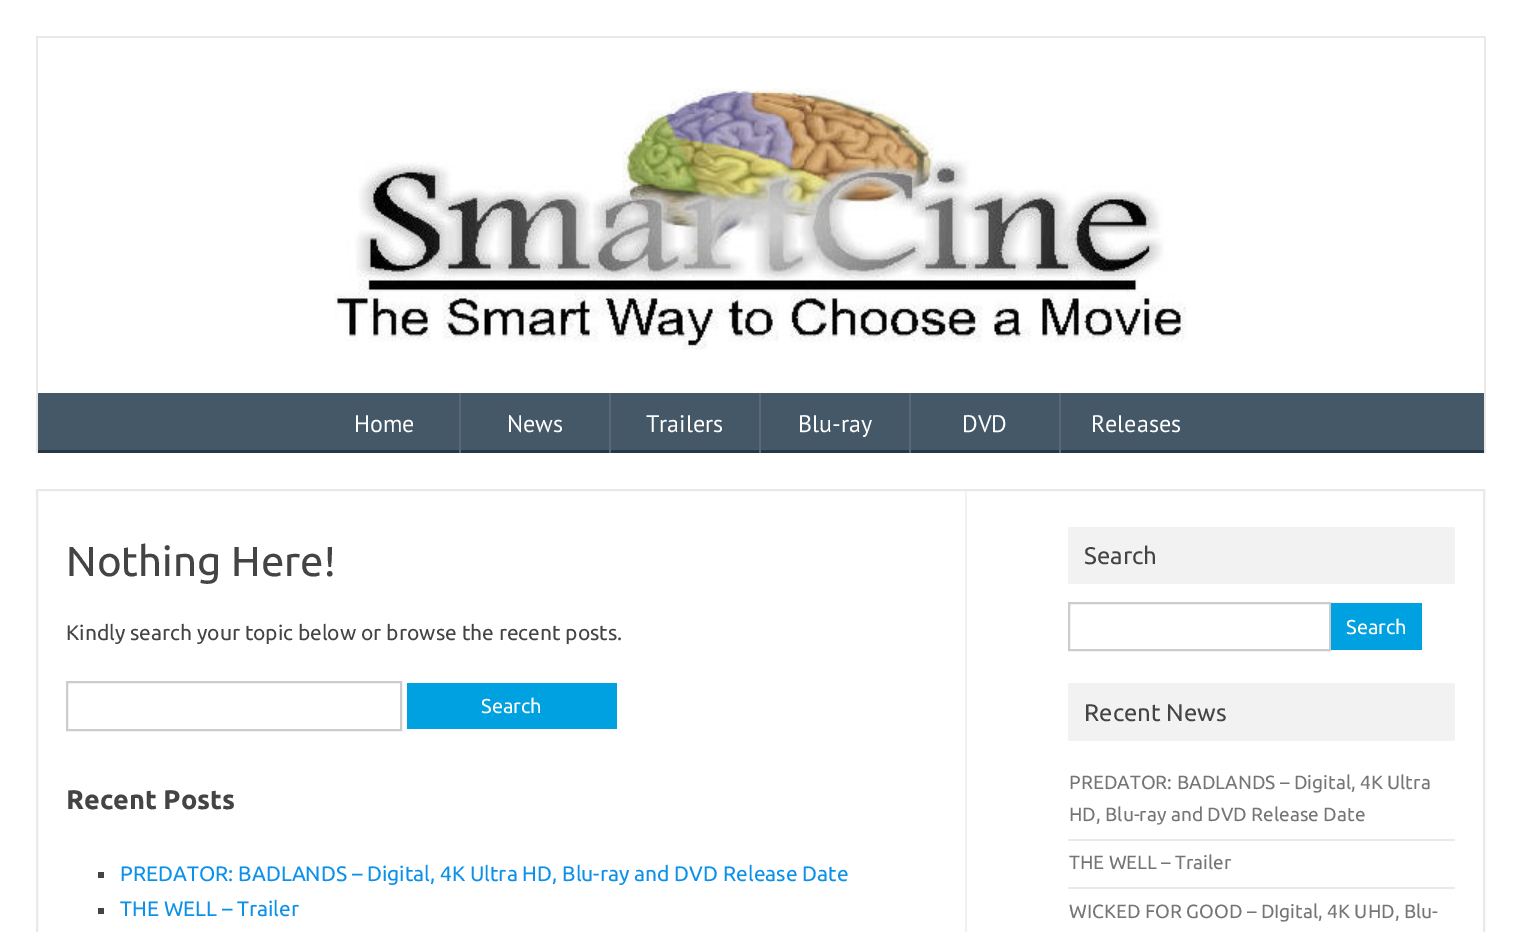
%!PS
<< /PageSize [1521 932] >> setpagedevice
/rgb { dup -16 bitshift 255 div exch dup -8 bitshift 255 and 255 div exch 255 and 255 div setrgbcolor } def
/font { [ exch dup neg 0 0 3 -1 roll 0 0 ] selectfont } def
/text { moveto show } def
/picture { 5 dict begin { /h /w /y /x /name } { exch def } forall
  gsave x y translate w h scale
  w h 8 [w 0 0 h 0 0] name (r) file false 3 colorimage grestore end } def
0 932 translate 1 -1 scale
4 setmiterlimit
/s1 { /PTSans-Regular 24 font 16#FFFFFF rgb } def
/s2 { /Ubuntu-Regular 42 font 16#444444 rgb } def
/s3 { /Ubuntu-Regular 21 font 16#444444 rgb } def
/s4 { /Ubuntu-Regular 20 font 16#FFFFFF rgb } def
/s5 { /Ubuntu-Bold 27 font 16#444444 rgb } def
/s6 { /Ubuntu-Regular 21 font 16#0B91EA rgb } def
/s7 { /Ubuntu-Regular 24 font 16#444444 rgb } def
/s8 { /Ubuntu-Regular 19.1 font 16#757575 rgb } def
16#FFFFFF rgb
0 0 1521 932 rectfill
16#E9E9E9 rgb
36 36 1449 2 rectfill
1484 36 2 417 rectfill
36 36 2 417 rectfill
(pic1.raw) 334 88 853 262 picture
16#455868 rgb
38 393 1446 57 rectfill
16#283744 rgb
38 450 1446 3 rectfill
16#576979 rgb
459 393 2 60 rectfill
s1
(Home) 354 432 text
16#576979 rgb
609 393 2 60 rectfill
s1
(News) 507 432 text
16#576979 rgb
759 393 2 60 rectfill
s1
(Trailers) 646 432 text
16#576979 rgb
909 393 2 60 rectfill
s1
(Blu-ray) 798 432 text
16#576979 rgb
1059 393 2 60 rectfill
s1
(DVD) 962 432 text
(Releases) 1091 432 text
16#E9E9E9 rgb
2 setlinewidth
37 490 1447 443 rectstroke
16#F1F1F1 rgb
965 491 2 441 rectfill
s2
(Nothing Here!) 66 576 text
s3
(Kindly search your topic below or browse the recent posts.) 66 640 text
16#CCCCCC rgb
67 682 334 48 rectstroke
16#00A1E0 rgb
407 683 210 46 rectfill
s4
(Search) 481 713 text
s5
(Recent Posts) 66 809 text
98 872 6 6 rectfill
s6
(PREDATOR: BADLANDS – Digital, 4K Ultra HD, Blu-ray and DVD Release Date) 120 881 text
16#444444 rgb
98 908 6 6 rectfill
s6
(THE WELL – Trailer) 120 916 text
16#F2F2F2 rgb
1068 527 387 57 rectfill
s7
(Search) 1084 564 text
16#CCCCCC rgb
1069 603 261 47 rectstroke
16#00A1E0 rgb
1331 603 91 47 rectfill
s4
(Search) 1346 634 text
16#F2F2F2 rgb
1068 683 387 58 rectfill
s7
(Recent News) 1084 721 text
16#E9E9E9 rgb
1068 839 387 2 rectfill
s8
(PREDATOR: BADLANDS – Digital, 4K Ultra) 1069 789 text
(HD, Blu-ray and DVD Release Date) 1069 821 text
16#E9E9E9 rgb
1068 887 387 2 rectfill
s8
(THE WELL – Trailer) 1069 869 text
(WICKED FOR GOOD – DIgital, 4K UHD, Blu-) 1069 918 text
showpage
